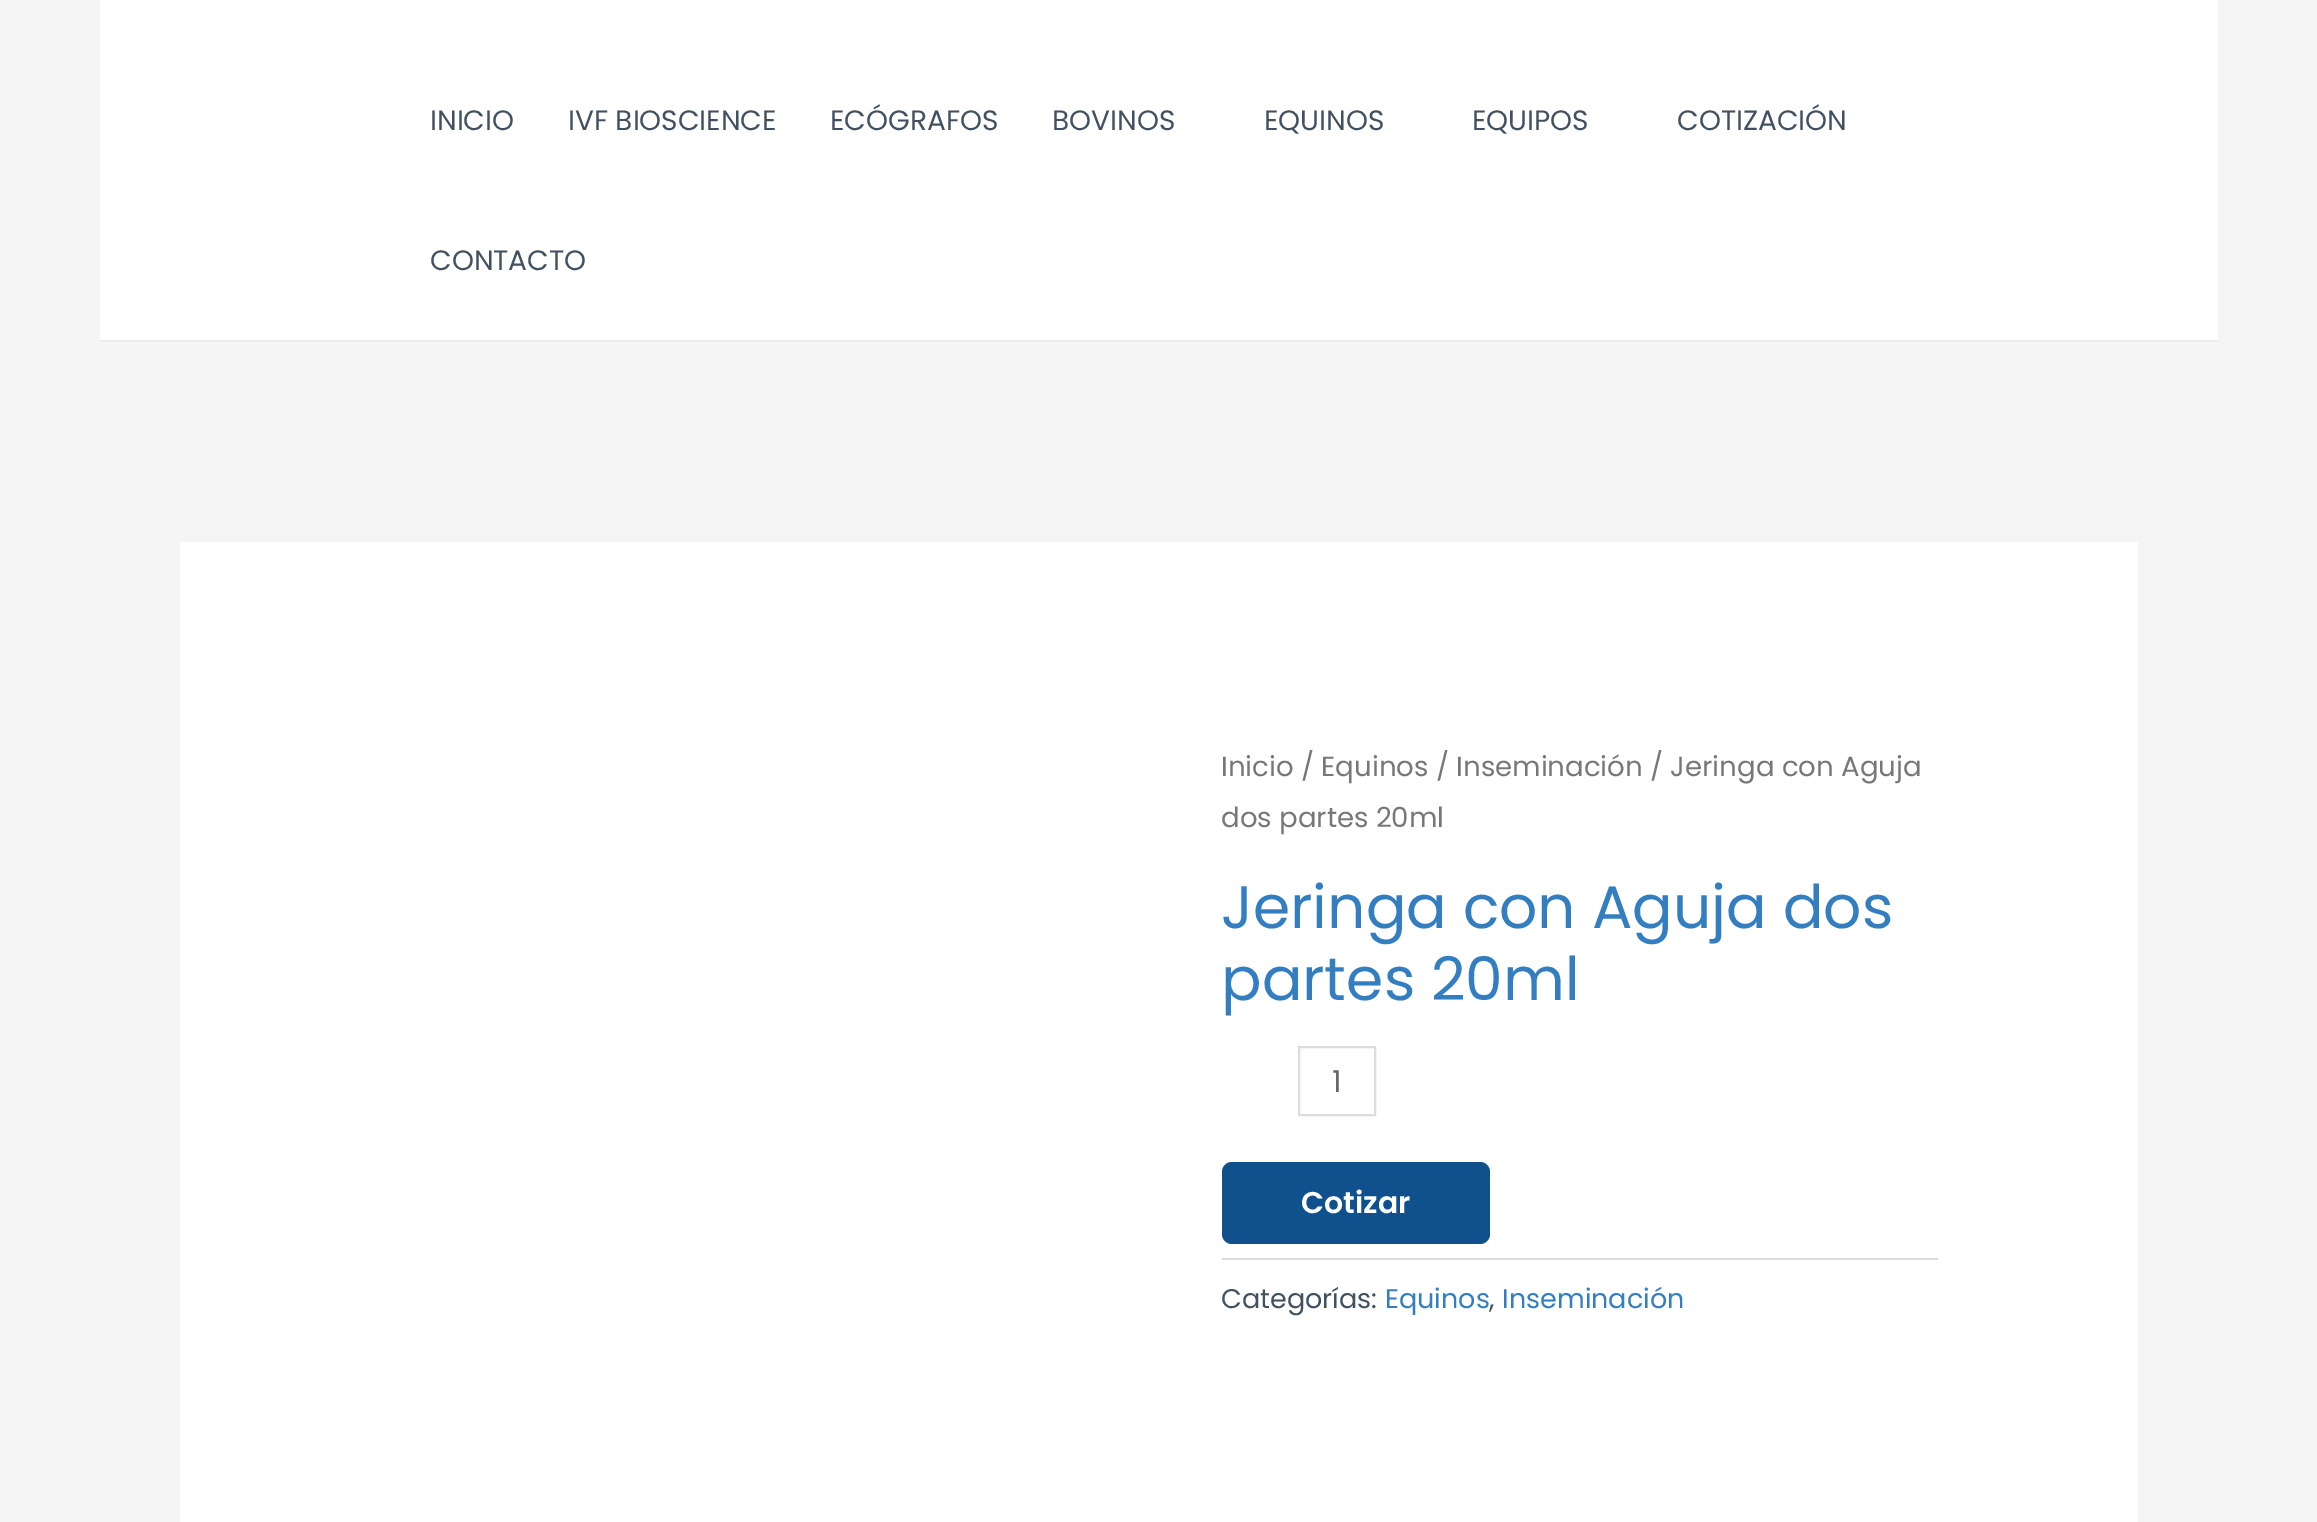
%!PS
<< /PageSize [2317 1522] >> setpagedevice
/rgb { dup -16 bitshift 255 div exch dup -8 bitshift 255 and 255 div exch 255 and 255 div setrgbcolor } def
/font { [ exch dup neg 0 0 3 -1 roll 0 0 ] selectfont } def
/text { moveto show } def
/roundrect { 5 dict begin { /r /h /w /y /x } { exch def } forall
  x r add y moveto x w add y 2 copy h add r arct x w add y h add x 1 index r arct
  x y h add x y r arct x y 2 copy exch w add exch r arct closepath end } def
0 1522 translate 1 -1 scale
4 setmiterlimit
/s1 { /Poppins-Regular 28 font 16#415161 rgb } def
/s2 { /Poppins-Regular 27.6 font 16#777777 rgb } def
/s3 { /Poppins-Regular 60 font 16#337EC1 rgb } def
/s4 { /Poppins-Regular 30 font 16#666666 rgb } def
/s5 { /Poppins-SemiBold 30 font 16#FFFFFF rgb } def
/s6 { /Poppins-Regular 27 font 16#415161 rgb } def
/s7 { /Poppins-Regular 27 font 16#337EC1 rgb } def
16#F5F5F5 rgb
0 0 2317 1522 rectfill
16#FFFFFF rgb
100 0 2118 340 rectfill
16#EDEDED rgb
100 340 2118 2 rectfill
s1
(INICIO) 430 130 text
(IVF BIOSCIENCE) 568 130 text
(ECÓGRAFOS) 830 130 text
(BOVINOS) 1052 130 text
(EQUINOS) 1264 130 text
(EQUIPOS) 1472 130 text
(COTIZACIÓN) 1677 130 text
(CONTACTO) 430 270 text
16#FFFFFF rgb
180 542 1958 980 rectfill
s2
(Inicio / Equinos / Inseminación / Jeringa con Aguja) 1221 776 text
(dos partes 20ml) 1221 827 text
s3
(Jeringa con Aguja dos) 1221 928 text
(partes 20ml) 1221 1000 text
16#DDDDDD rgb
2 setlinewidth
1299 1047 76 68 rectstroke
s4
(1) 1332 1092 text
16#10518D rgb
1222 1162 268 82 10 roundrect fill
s5
(Cotizar) 1301 1213 text
16#DDDDDD rgb
1222 1258 716 2 rectfill
s6
(Categorías:) 1221 1308 text
s7
(Equinos) 1385 1308 text
s6
(,) 1489 1308 text
s7
(Inseminación) 1502 1308 text
showpage
